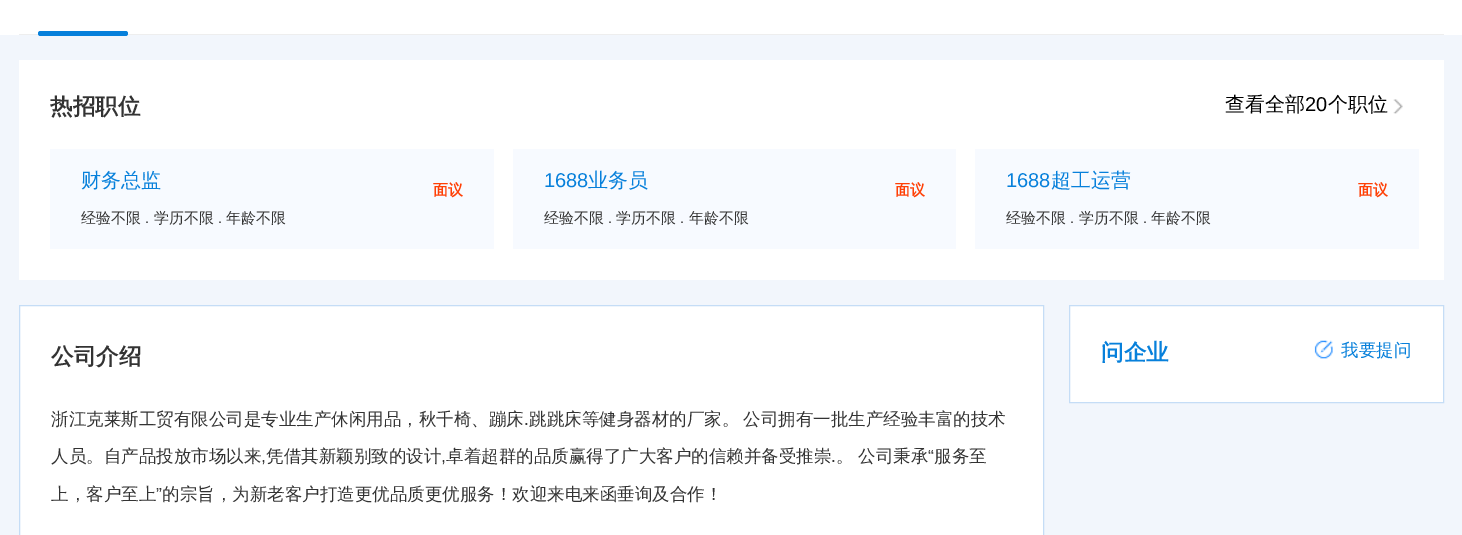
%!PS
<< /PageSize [1462 535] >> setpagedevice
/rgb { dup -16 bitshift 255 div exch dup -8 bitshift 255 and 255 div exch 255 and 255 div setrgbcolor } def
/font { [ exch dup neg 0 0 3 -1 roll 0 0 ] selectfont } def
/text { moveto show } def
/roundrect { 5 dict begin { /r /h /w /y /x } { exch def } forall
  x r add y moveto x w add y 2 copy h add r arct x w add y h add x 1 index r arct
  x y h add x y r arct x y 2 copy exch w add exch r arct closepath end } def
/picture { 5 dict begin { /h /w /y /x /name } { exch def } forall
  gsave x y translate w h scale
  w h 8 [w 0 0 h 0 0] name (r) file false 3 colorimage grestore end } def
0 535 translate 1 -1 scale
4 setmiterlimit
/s1 { /WenQuanYiZenHei-Bold 22.5 font 16#333333 rgb } def
/s2 { /WenQuanYiZenHei-Medium 20 font 16#000000 rgb } def
/s3 { /LiberationSans-Regular 20 font 16#000000 rgb } def
/s4 { /WenQuanYiZenHei-Medium 20 font 16#0780DB rgb } def
/s5 { /WenQuanYiZenHei-Bold 15 font 16#FF3F05 rgb } def
/s6 { /WenQuanYiZenHei-Medium 15 font 16#333333 rgb } def
/s7 { /LiberationSans-Regular 15 font 16#333333 rgb } def
/s8 { /LiberationSans-Regular 20 font 16#0780DB rgb } def
/s9 { /WenQuanYiZenHei-Medium 17.5 font 16#333333 rgb } def
/s10 { /LiberationSans-Regular 17.5 font 16#333333 rgb } def
/s11 { /WenQuanYiZenHei-Bold 22.5 font 16#0780DB rgb } def
/s12 { /WenQuanYiZenHei-Medium 17.5 font 16#0780DB rgb } def
16#F2F6FC rgb
0 0 1462 535 rectfill
16#FFFFFF rgb
0 0 1462 35 rectfill
16#EEEEEE rgb
19 34 1425 1 rectfill
16#0780DB rgb
38 31 90 5 2.5 roundrect fill
16#FFFFFF rgb
19 60 1425 220 rectfill
s1
(热招职位) 50 114 text
s2
(查看全部) 1225 111 text
s3
(20) 1305 111 text
s2
(个职位) 1328 111 text
(pic1.raw) 1393 99 10 15 picture
16#F7FAFF rgb
50 149 444 100 rectfill
s4
(财务总监) 81 187 text
s5
(面议) 433 195 text
s6
(经验不限) 81 223 text
s7
(.) 145 223 text
s6
(学历不限) 154 223 text
s7
(.) 218 223 text
s6
(年龄不限) 226 223 text
16#F7FAFF rgb
513 149 443 100 rectfill
s8
(1688) 544 187 text
s4
(业务员) 588 187 text
s5
(面议) 895 195 text
s6
(经验不限) 544 223 text
s7
(.) 608 223 text
s6
(学历不限) 616 223 text
s7
(.) 680 223 text
s6
(年龄不限) 689 223 text
16#F7FAFF rgb
975 149 444 100 rectfill
s8
(1688) 1006 187 text
s4
(超工运营) 1051 187 text
s5
(面议) 1358 195 text
s6
(经验不限) 1006 223 text
s7
(.) 1070 223 text
s6
(学历不限) 1079 223 text
s7
(.) 1143 223 text
s6
(年龄不限) 1151 223 text
16#FFFFFF rgb
19.5 305.5 moveto 1043.5 305.5 lineto 1043.5 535.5 lineto 19.5 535.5 lineto closepath gsave fill grestore
16#C5DDF6 rgb
stroke
s1
(公司介绍) 51 364 text
s9
(浙江克莱斯工贸有限公司是专业生产休闲用品，秋千椅、蹦床) 51 425 text
s10
(.) 524 425 text
s9
(跳跳床等健身器材的厂家。) 529 425 text
(公司拥有一批生产经验丰富的技术) 743 425 text
(人员。自产品投放市场以来) 51 462 text
(凭借其新颖别致的设计) 266 462 text
(卓着超群的品质赢得了广大客户的信赖并备受推崇) 446 462 text
(公司秉承) 858 462 text
s10
(“) 928 462 text
s9
(服务至) 934 462 text
s10
(,) 261 462 text
(,) 441 462 text
(.) 831 462 text
s9
(。) 836 462 text
(上，客户至上) 51 500 text
s10
(”) 156 500 text
s9
(的宗旨，为新老客户打造更优品质更优服务！欢迎来电来函垂询及合作！) 162 500 text
16#FFFFFF rgb
1069.5 305.5 moveto 1443.5 305.5 lineto 1443.5 402.5 lineto 1069.5 402.5 lineto closepath gsave fill grestore
16#C5DDF6 rgb
stroke
s11
(问企业) 1101 360 text
(pic2.raw) 1314 340 19 19 picture
s12
(我要提问) 1341 356 text
showpage
